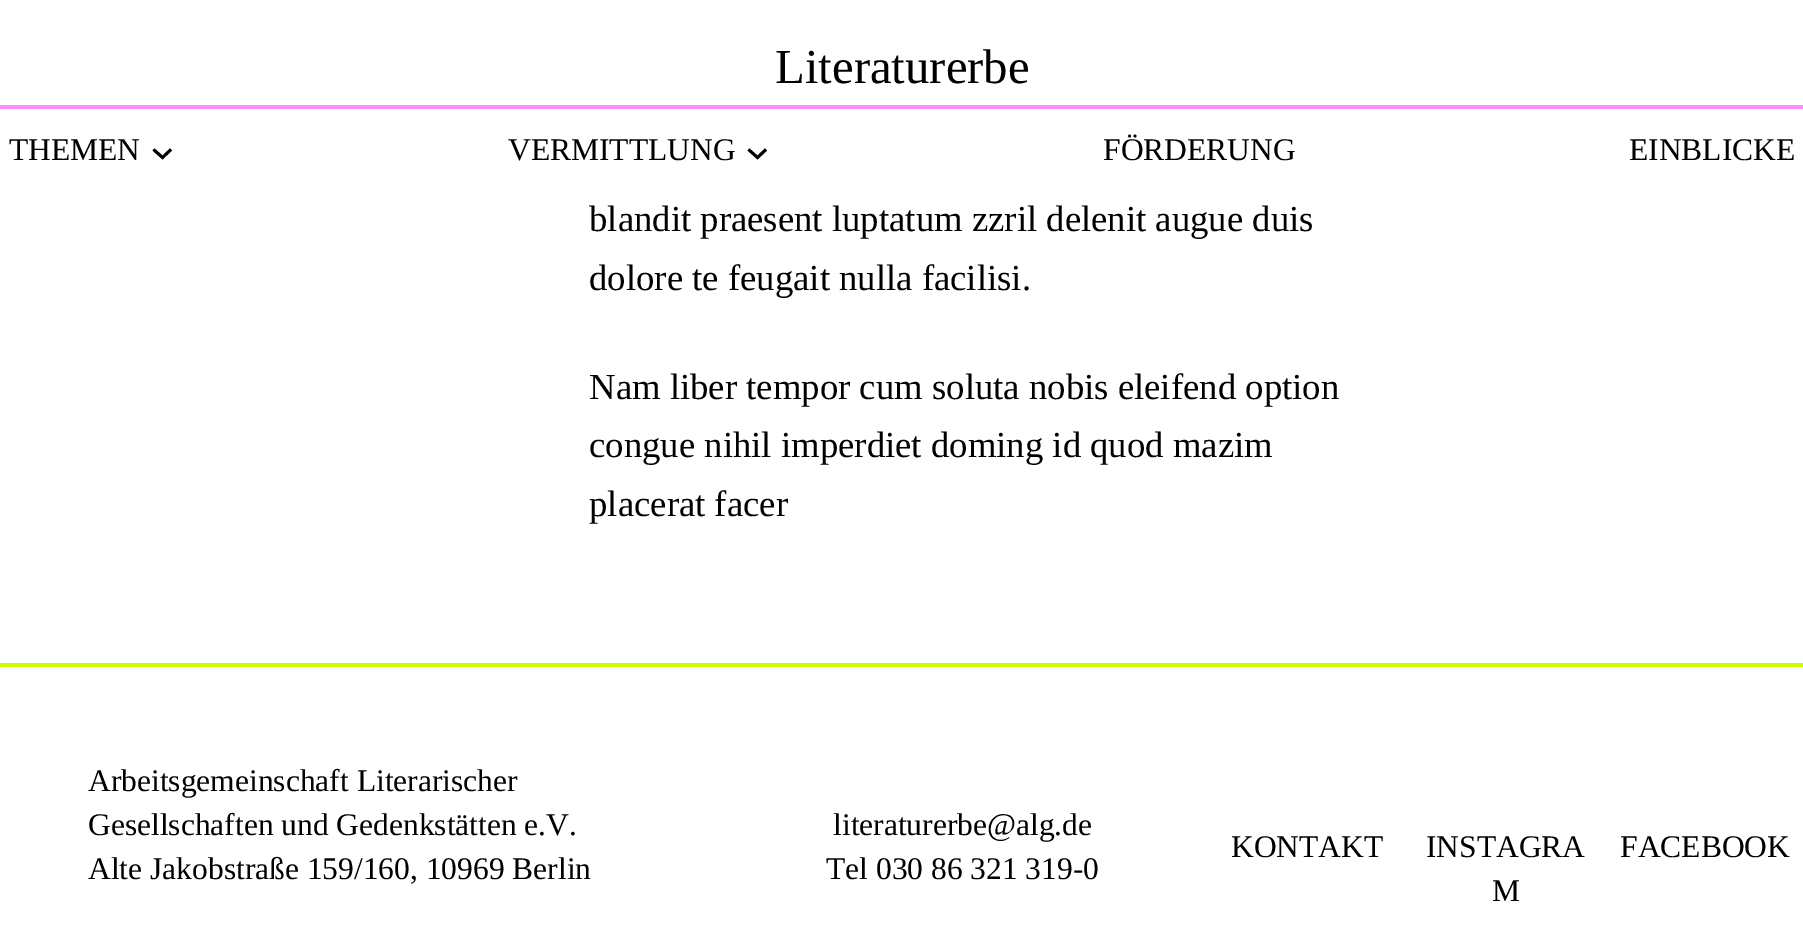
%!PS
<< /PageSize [1803 937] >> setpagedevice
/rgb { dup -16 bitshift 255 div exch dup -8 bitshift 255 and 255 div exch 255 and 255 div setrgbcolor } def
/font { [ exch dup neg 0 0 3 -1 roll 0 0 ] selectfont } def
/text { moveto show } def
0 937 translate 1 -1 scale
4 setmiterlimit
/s1 { /LiberationSerif-Regular 48.75 font 16#000000 rgb } def
/s2 { /LiberationSerif-Regular 31.5 font 16#000000 rgb } def
/s3 { /LiberationSerif-Regular 36.75 font 16#000000 rgb } def
16#FFFFFF rgb
0 0 1803 937 rectfill
s1
(Literaturerbe) 775 83 text
16#FF8CFF rgb
0 105 1803 4 rectfill
s2
(THEMEN) 9 160 text
2.9 setlinewidth
153.5 149.5 moveto 162.5 157.5 lineto 171 149.5 lineto stroke
(VERMITTLUNG) 508 160 text
748.5 149.5 moveto 757.5 157.5 lineto 766 149.5 lineto stroke
(FÖRDERUNG) 1103 160 text
(EINBLICKE) 1629 160 text
s3
(blandit praesent luptatum zzril delenit augue duis) 589 231 text
(dolore te feugait nulla facilisi.) 589 290 text
(Nam liber tempor cum soluta nobis eleifend option) 589 399 text
(congue nihil imperdiet doming id quod mazim) 589 457 text
(placerat facer) 589 516 text
16#CAFF00 rgb
0 663 1803 4 rectfill
s2
(Arbeitsgemeinschaft Literarischer) 88 791 text
(Gesellschaften und Gedenkstätten e.V.) 88 835 text
(Alte Jakobstraße 159/160, 10969 Berlin) 88 879 text
(literaturerbe@alg.de) 833 835 text
(Tel 030 86 321 319-0) 826 879 text
(KONTAKT) 1231 857 text
(INSTAGRA) 1426 857 text
(M) 1492 901 text
(FACEBOOK) 1620 857 text
showpage
